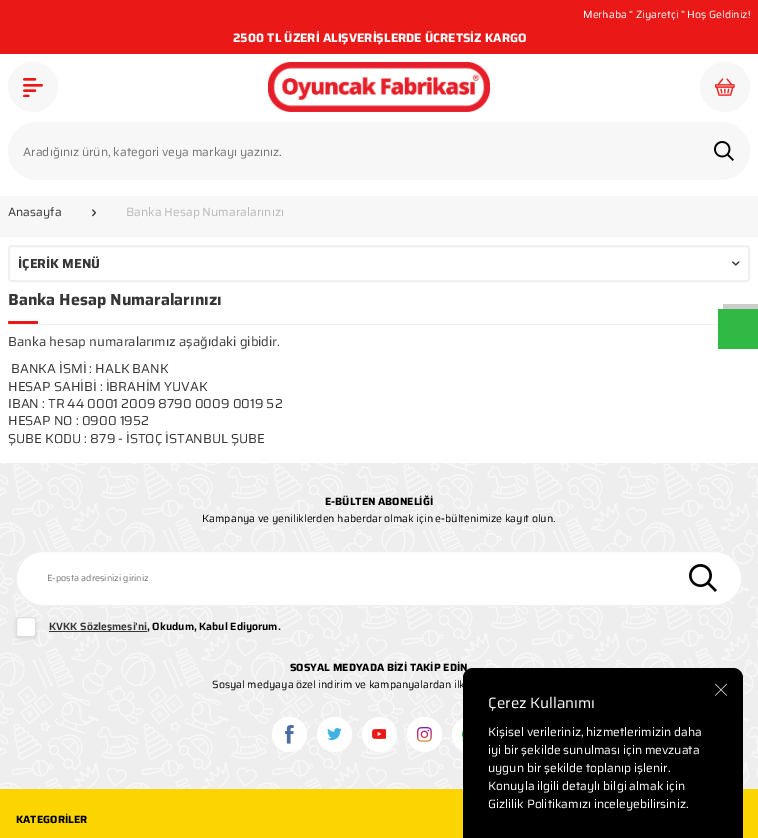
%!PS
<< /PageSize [758 838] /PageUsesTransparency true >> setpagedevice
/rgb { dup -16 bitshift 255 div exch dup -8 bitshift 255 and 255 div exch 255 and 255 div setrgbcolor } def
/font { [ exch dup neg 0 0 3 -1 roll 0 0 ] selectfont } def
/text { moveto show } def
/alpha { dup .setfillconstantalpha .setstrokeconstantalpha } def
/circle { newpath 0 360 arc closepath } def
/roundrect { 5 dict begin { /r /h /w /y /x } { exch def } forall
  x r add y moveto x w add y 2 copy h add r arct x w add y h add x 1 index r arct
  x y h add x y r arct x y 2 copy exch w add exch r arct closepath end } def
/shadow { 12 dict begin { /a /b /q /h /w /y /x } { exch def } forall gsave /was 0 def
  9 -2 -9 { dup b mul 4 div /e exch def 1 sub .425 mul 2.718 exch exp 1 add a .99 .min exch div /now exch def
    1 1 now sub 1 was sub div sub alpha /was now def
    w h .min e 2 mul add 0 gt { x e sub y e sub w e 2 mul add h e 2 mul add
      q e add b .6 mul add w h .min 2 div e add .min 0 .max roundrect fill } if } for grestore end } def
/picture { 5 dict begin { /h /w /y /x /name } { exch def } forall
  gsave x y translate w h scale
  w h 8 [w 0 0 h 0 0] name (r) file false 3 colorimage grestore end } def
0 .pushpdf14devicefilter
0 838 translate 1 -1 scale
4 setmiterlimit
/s1 { /Saira-Regular 10.55 font 16#FFFFFF rgb } def
/s2 { /Saira-Bold 12.2 font 16#FFFFFF rgb } def
/s3 { /Saira-Regular 12 font 16#757575 rgb } def
/s4 { /Saira-Regular 12 font 16#373738 rgb } def
/s5 { /Saira-Regular 12 font 16#B9B9B9 rgb } def
/s6 { /Saira-Bold 13 font 16#373738 rgb } def
/s7 { /Saira-Bold 16 font 16#373738 rgb } def
/s8 { /Saira-Regular 13 font 16#373738 rgb } def
/s9 { /Saira-Bold 10.55 font 16#000000 rgb } def
/s10 { /Saira-Regular 10.55 font 16#000000 rgb } def
/s11 { /Saira-Regular 9 font 16#757575 rgb } def
/s12 { /Saira-SemiBold 10.55 font 16#373738 rgb } def
/s13 { /Saira-SemiBold 10.55 font 16#000000 rgb } def
/s14 { /Saira-Regular 15 font 16#FFFFFF rgb } def
/s15 { /Saira-Regular 12 font 16#FFFFFF rgb } def
16#FFFFFF rgb
0 0 758 838 rectfill
16#EA1917 rgb
0 0 758 54 rectfill
s1
(Merhaba “ Ziyaretçi ” Hoş Geldiniz!) 583 18 text
s2
(2500 TL ÜZERİ ALIŞVERİŞLERDE ÜCRETSİZ KARGO) 233 42 text
16#F7F7F7 rgb
33 87 25 circle fill
(pic1.raw) 23 78 20 19 picture
(pic2.raw) 268 62 222 50 picture
725 87 25 circle fill
(pic3.raw) 715 78 20 18 picture
8 122 742 58 29 roundrect fill
s3
(Aradığınız ürün, kategori veya markayı yazınız.) 23 156 text
(pic4.raw) 714 141 20 20 picture
16#F7F7F7 rgb
0 196 758 41 rectfill
s4
(Anasayfa) 8 216 text
(pic5.raw) 92 209 4 8 picture
s5
(Banka Hesap Numaralarınızı) 126 216 text
16#F0F0F0 rgb
2 setlinewidth
9 246 740 35 3 roundrect stroke
s6
(İÇERİK MENÜ) 18 268 text
(pic6.raw) 732 261 8 5 picture
16#F0F0F0 rgb
8 324 710 1 rectfill
s7
(Banka Hesap Numaralarınızı) 8 305 text
16#EA1917 rgb
8 321 30 3 1.5 roundrect fill
s8
(Banka hesap numaralarımız aşağıdaki gibidir.) 8 346 text
(BANKA İSMİ : HALK BANK) 11 373 text
(HESAP SAHİBİ : İBRAHİM YUVAK) 8 391 text
(IBAN : TR 44 0001 2009 8790 0009 0019 52) 8 408 text
(HESAP NO : 0900 1952) 8 425 text
(ŞUBE KODU : 879 - İSTOÇ İSTANBUL ŞUBE) 8 443 text
16#CCCCCC rgb
723 304 moveto 723 309 lineto 758 309 lineto 758 344 lineto 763 344 lineto 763 304 lineto closepath fill
16#30BA45 rgb
718 309 40 40 rectfill
16#FCD500 rgb
0 789 758 49 rectfill
16#F7F7F7 rgb
0 463 758 326 rectfill
(pic7.raw) 0 463 758 326 picture
s9
(E-BÜLTEN ABONELİĞİ) 325 505 text
s10
(Kampanya ve yeniliklerden haberdar olmak için e-bültenimize kayıt olun.) 202 522 text
16#FFFFFF rgb
16.5 551.5 725 54 27 roundrect gsave fill grestore
16#F0F0F0 rgb
1 setlinewidth
stroke
s11
(E-posta adresinizi giriniz) 47 581 text
(pic8.raw) 689 564 28 28 picture
16#000000 rgb
16 619 20 20 3 2 0.1 shadow
16#FFFFFF rgb
16.5 617.5 19 19 2.5 roundrect gsave fill grestore
16#DDDDDD rgb
stroke
16#373738 rgb
49 631 98 1 rectfill
s12
(KVKK Sözleşmesi'ni) 49 630 text
s13
(, Okudum, Kabul Ediyorum.) 147 630 text
s9
(SOSYAL MEDYADA BİZİ TAKİP EDİN) 290 671 text
s10
(Sosyal medyaya özel indirim ve kampanyalardan ilk) 212 688 text
16#FFFFFF rgb
289.5 734.5 17.5 circle fill
(pic9.raw) 285 725 9 19 picture
334.5 734.5 17.5 circle fill
(pic10.raw) 327 728 15 12 picture
379.5 734.5 17.5 circle fill
(pic11.raw) 372 729 14 10 picture
424.5 734.5 17.5 circle fill
(pic12.raw) 417 727 15 15 picture
469.5 734.5 17.5 circle fill
(pic13.raw) 462 730 1 11 picture
s9
(KATEGORİLER) 16 823 text
473 668 moveto 733 668 lineto 738.5 668 743 672.5 743 678 curveto 743 838 lineto 463 838 lineto 463 678 lineto 463 672.5 467.5 668 473 668 curveto closepath fill
(pic14.raw) 715 683 12 13 picture
s14
(Çerez Kullanımı) 488 708 text
s15
(Kişisel verileriniz, hizmetlerimizin daha) 488 736 text
(iyi bir şekilde sunulması için mevzuata) 488 754 text
(uygun bir şekilde toplanıp işlenir.) 488 772 text
(Konuyla ilgili detaylı bilgi almak için) 488 790 text
(Gizlilik Politikamızı inceleyebilirsiniz.) 488 808 text
.poppdf14devicefilter showpage
